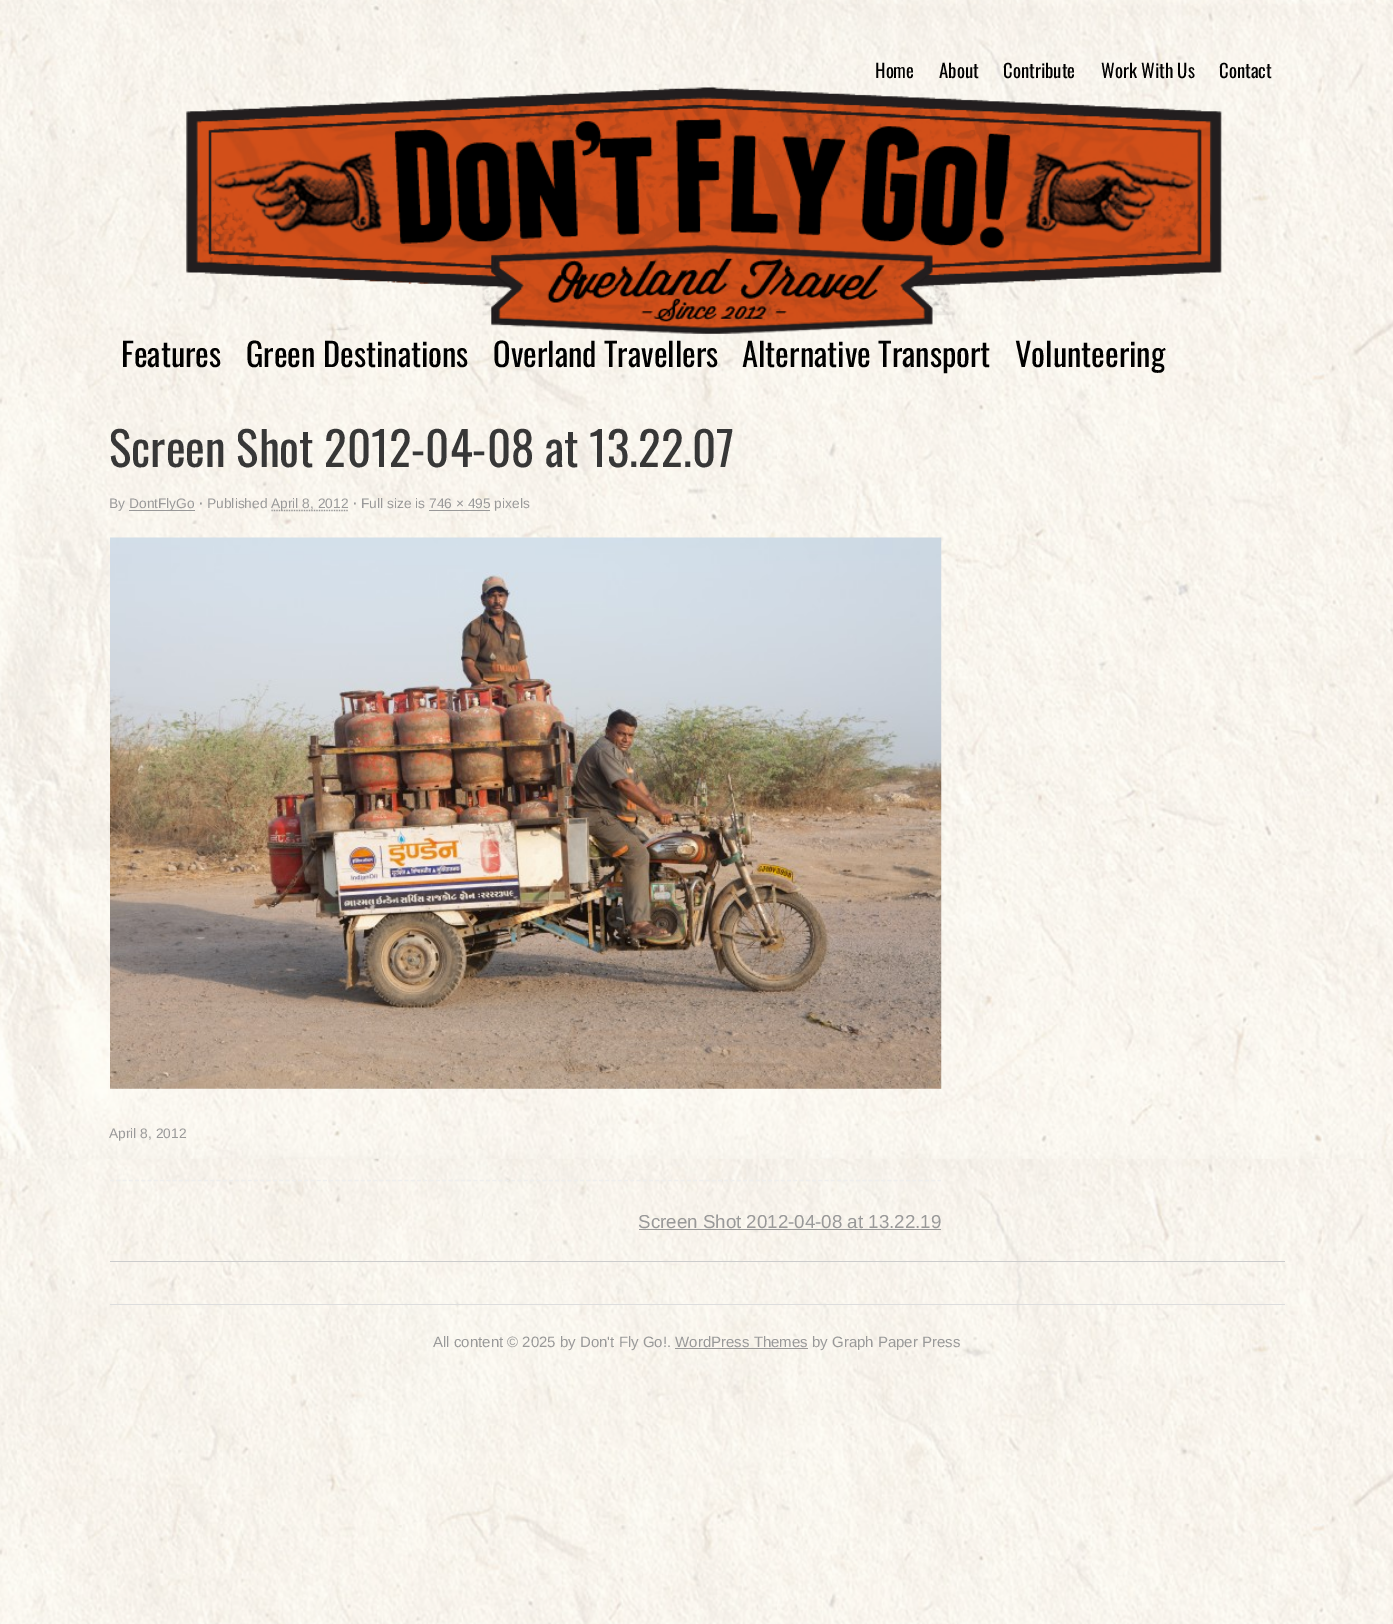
%!PS
<< /PageSize [1393 1624] >> setpagedevice
/rgb { dup -16 bitshift 255 div exch dup -8 bitshift 255 and 255 div exch 255 and 255 div setrgbcolor } def
/font { [ exch dup neg 0 0 3 -1 roll 0 0 ] selectfont } def
/text { moveto show } def
/picture { 5 dict begin { /h /w /y /x /name } { exch def } forall
  gsave x y translate w h scale
  w h 8 [w 0 0 h 0 0] name (r) file false 3 colorimage grestore end } def
0 1624 translate 1 -1 scale
4 setmiterlimit
/s1 { /Oswald-Regular 18.75 font 16#000000 rgb } def
/s2 { /Oswald-Regular 32.5 font 16#000000 rgb } def
/s3 { /Oswald-Regular 46.9 font 16#373737 rgb } def
/s4 { /LiberationSans-Regular 13.75 font 16#999999 rgb } def
/s5 { /LiberationSans-Bold 13.75 font 16#999999 rgb } def
/s6 { /LiberationSans-Regular 18.75 font 16#999999 rgb } def
/s7 { /LiberationSans-Regular 15 font 16#999999 rgb } def
16#FFFFFF rgb
0 0 1393 1624 rectfill
(pic1.raw) 0 0 1393 1624 picture
s1
(Home) 875 78 text
(About) 939 78 text
(Contribute) 1003 78 text
(Work With Us) 1101 78 text
(Contact) 1219 78 text
(pic2.raw) 186 84 1036 250 picture
s2
(Features) 121 367 text
(Green Destinations) 246 367 text
(Overland Travellers) 493 367 text
(Alternative Transport) 742 367 text
(Volunteering) 1015 367 text
16#EEEEEE rgb
1.2 setlinewidth
[3.75 2.52] 0 setdash
110 1180.5 moveto 941 1180.5 lineto stroke
s3
(Screen Shot 2012-04-08 at 13.22.07) 109 467 text
s4
(By) 109 508 text
129 510 66 1 rectfill
(DontFlyGo) 129 508 text
s5
(·) 199 508 text
s4
(Published) 207 508 text
[1.25 1.25] 0 setdash
271.5 510.5 moveto 348.5 510.5 lineto stroke
(April 8, 2012) 271 508 text
s5
(·) 353 508 text
s4
(Full size is 746 × 495 pixels) 361 508 text
429 510 61 1 rectfill
(pic3.raw) 110 537 832 552 picture
(April 8, 2012) 109 1138 text
s6
(Screen Shot 2012-04-08 at 13.22.19) 638 1228 text
639 1229 302 1 rectfill
16#CCCCCC rgb
110 1261 1175 1 rectfill
16#DDDDDD rgb
110 1304 1175 1 rectfill
s7
(All content © 2025 by Don't Fly Go!. WordPress Themes by Graph Paper Press) 433 1347 text
675 1348 133 1 rectfill
showpage
